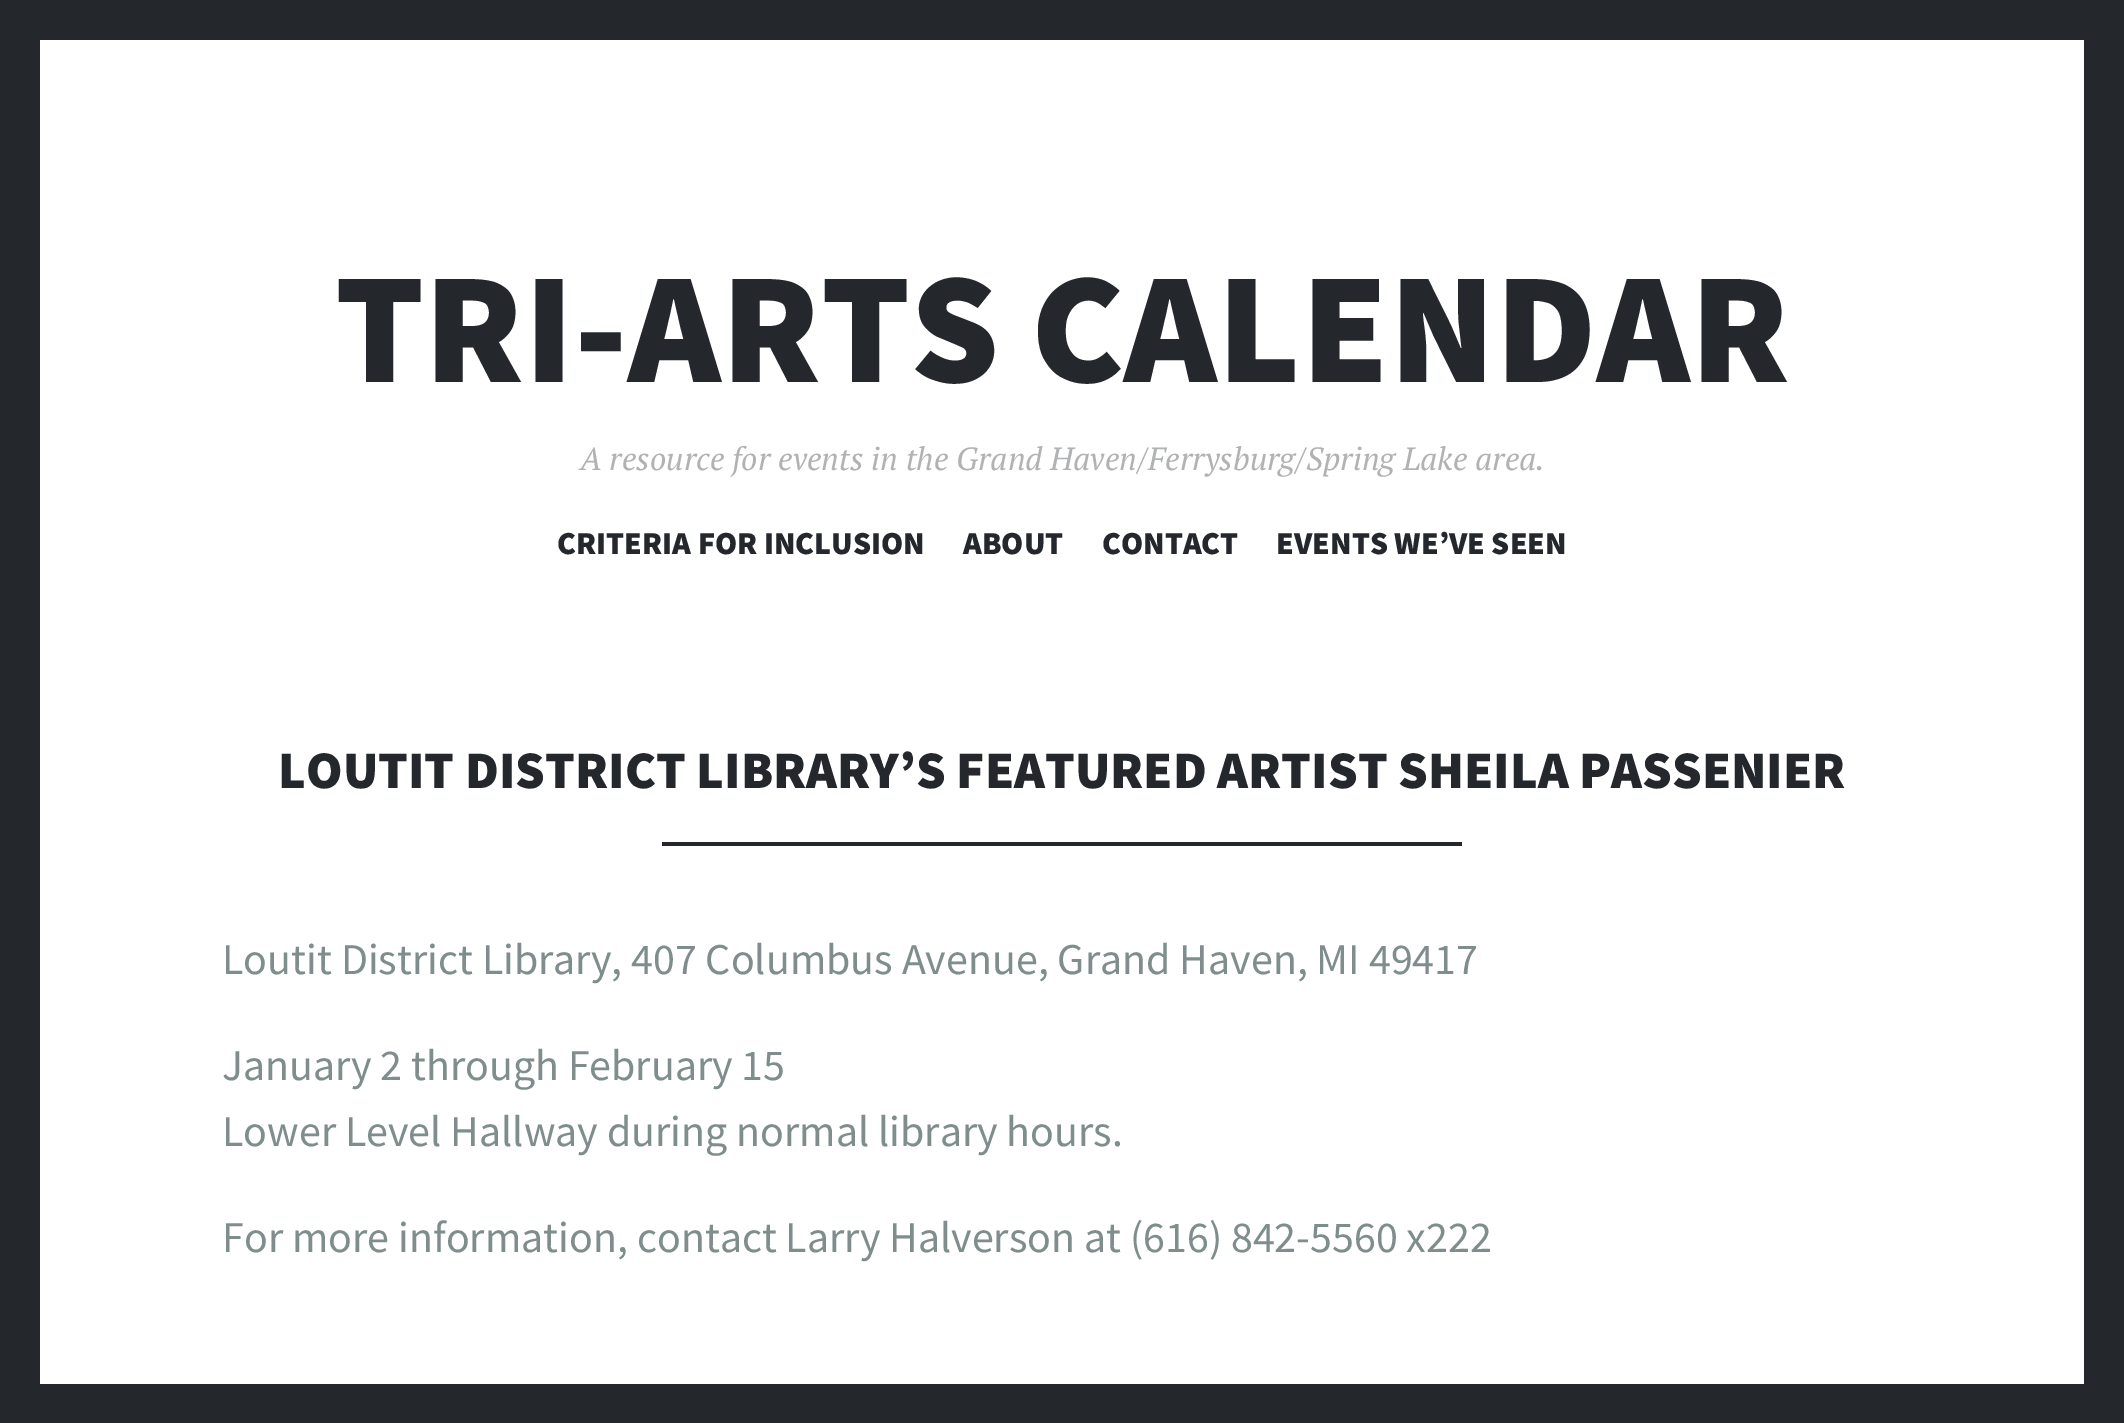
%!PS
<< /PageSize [2124 1423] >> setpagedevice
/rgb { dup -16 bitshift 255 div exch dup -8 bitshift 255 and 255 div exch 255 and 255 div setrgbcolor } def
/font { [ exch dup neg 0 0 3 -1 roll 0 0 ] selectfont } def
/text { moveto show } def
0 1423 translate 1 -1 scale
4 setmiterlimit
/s1 { /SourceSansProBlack-Black 158.5 font 16#24282D rgb } def
/s2 { /PTSerif-Italic 32.1 font 16#B1B2B3 rgb } def
/s3 { /SourceSansProBlack-Black 32.1 font 16#24282D rgb } def
/s4 { /SourceSansProBlack-Black 52.8 font 16#24282D rgb } def
/s5 { /SourceSansPro-Regular 44 font 16#7F8D8C rgb } def
16#24282D rgb
0 0 2124 1423 rectfill
16#FFFFFF rgb
40 40 2044 1344 rectfill
s1
(TRI-ARTS CALENDAR) 335 382 text
s2
(A resource for events in the Grand Haven/Ferrysburg/Spring Lake area.) 580 470 text
s3
(CRITERIA FOR INCLUSION) 557 554 text
(ABOUT) 963 554 text
(CONTACT) 1102 554 text
(EVENTS WE’VE SEEN) 1276 554 text
s4
(LOUTIT DISTRICT LIBRARY’S FEATURED ARTIST SHEILA PASSENIER) 278 788 text
662 842 800 4 rectfill
s5
(Loutit District Library, 407 Columbus Avenue, Grand Haven, MI 49417) 222 974 text
(January 2 through February 15) 222 1080 text
(Lower Level Hallway during normal library hours.) 222 1146 text
(For more information, contact Larry Halverson at \(616\) 842-5560 x222) 222 1252 text
showpage
